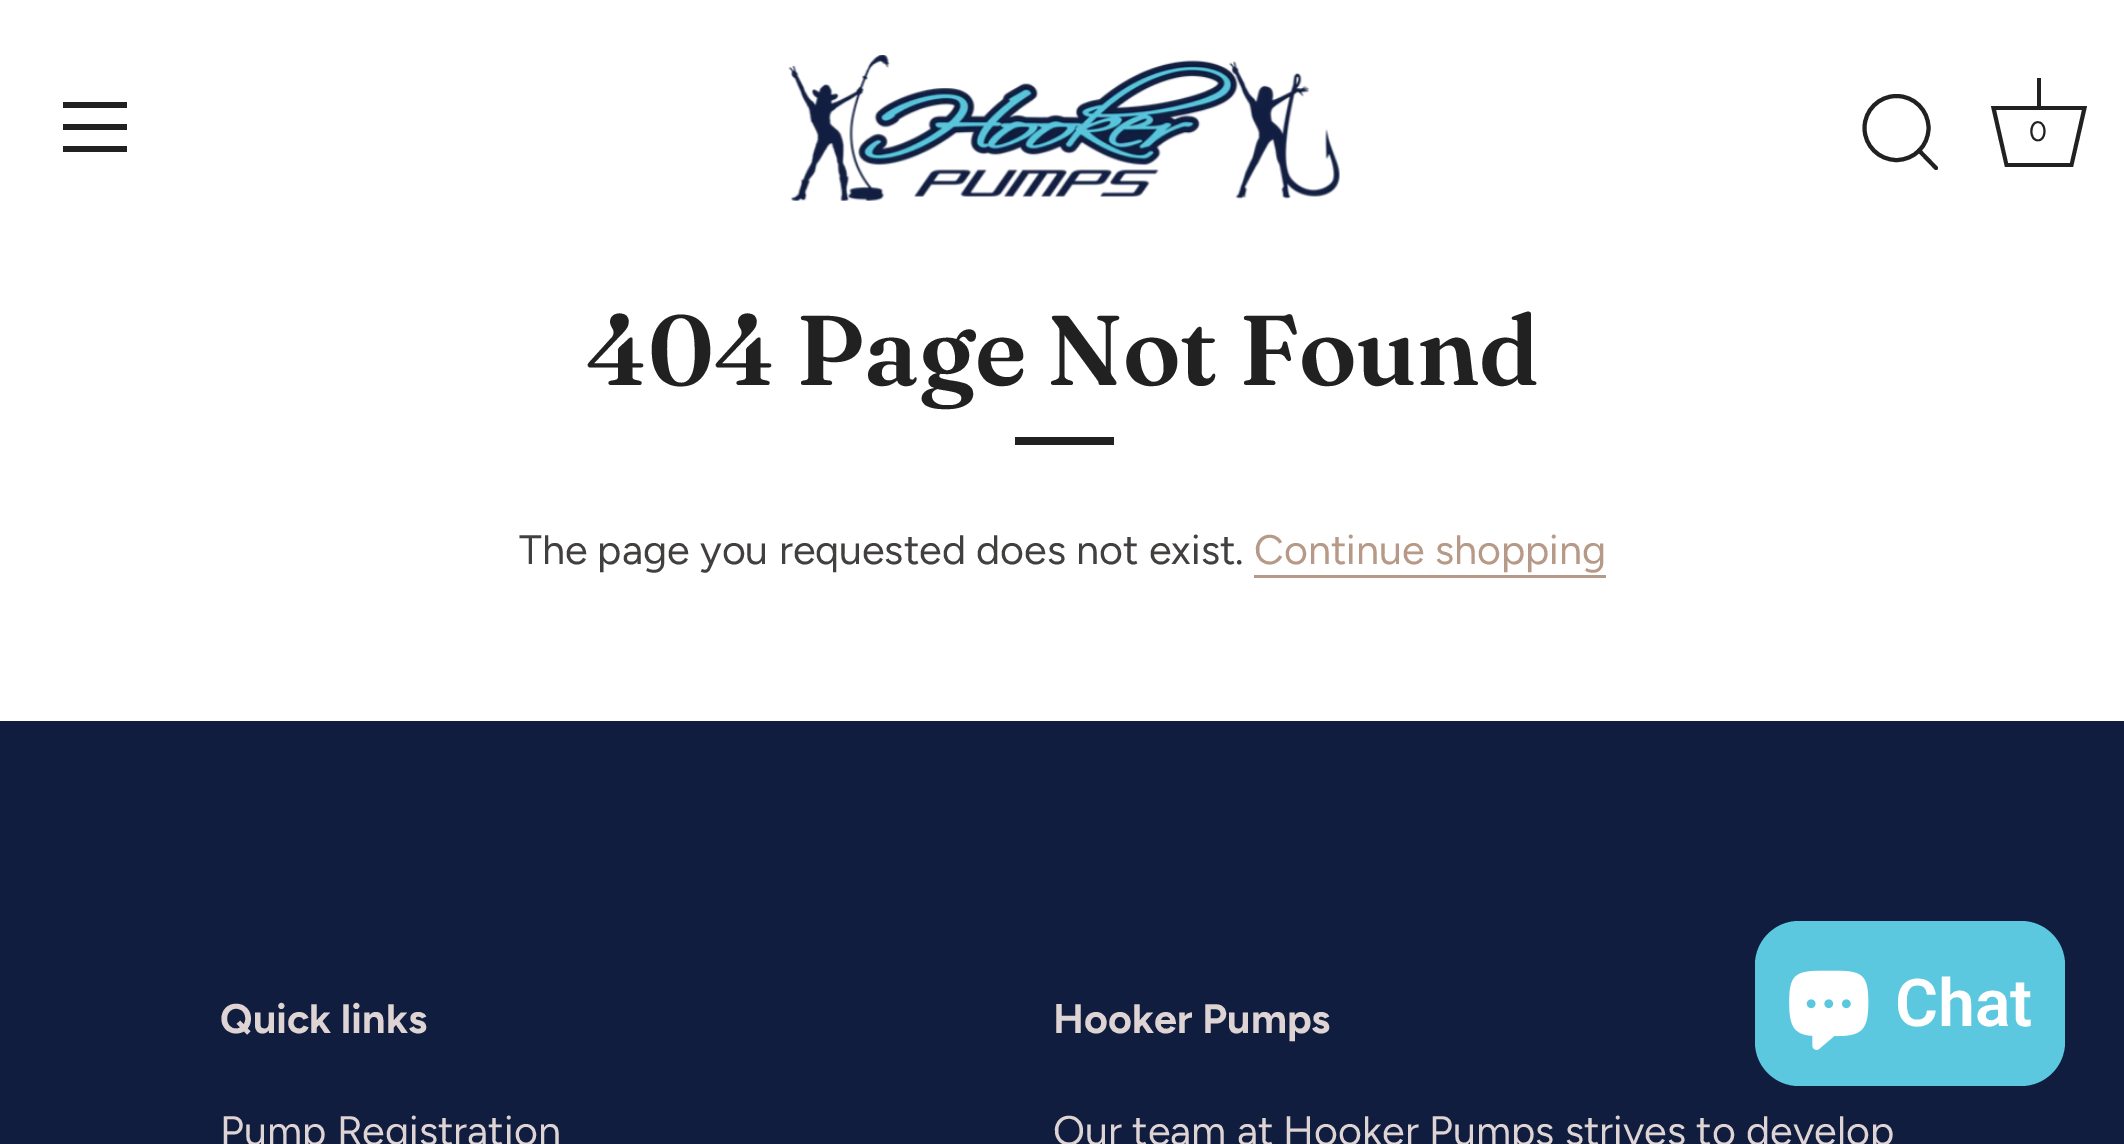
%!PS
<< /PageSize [2124 1144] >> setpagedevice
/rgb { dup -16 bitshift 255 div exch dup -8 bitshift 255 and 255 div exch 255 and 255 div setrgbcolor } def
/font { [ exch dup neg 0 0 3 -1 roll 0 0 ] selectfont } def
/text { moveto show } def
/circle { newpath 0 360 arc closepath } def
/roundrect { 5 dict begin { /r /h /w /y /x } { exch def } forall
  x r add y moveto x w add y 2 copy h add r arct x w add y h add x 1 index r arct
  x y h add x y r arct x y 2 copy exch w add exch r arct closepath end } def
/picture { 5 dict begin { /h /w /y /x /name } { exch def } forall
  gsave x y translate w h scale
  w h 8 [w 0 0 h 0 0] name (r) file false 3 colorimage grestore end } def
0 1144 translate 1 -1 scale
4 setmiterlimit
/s1 { /Figtree-Regular 28 font 16#212121 rgb } def
/s2 { /Fraunces-SemiBold 99 font 16#212121 rgb } def
/s3 { /Figtree-Regular 41.25 font 16#423F3F rgb } def
/s4 { /Figtree-Regular 41.25 font 16#B79987 rgb } def
/s5 { /Figtree-Bold 41.25 font 16#DED4D4 rgb } def
/s6 { /Figtree-Regular 41.25 font 16#DED4D4 rgb } def
/s7 { /Roboto-SemiBold 66 font 16#FFFFFF rgb } def
16#FFFFFF rgb
0 0 2124 1144 rectfill
16#212121 rgb
63 102 64 6 rectfill
63 124 64 6 rectfill
63 146 64 6 rectfill
(pic1.raw) 788 55 552 146 picture
4 setlinewidth
1896.5 128 32 circle stroke
1 setlinecap
1 setlinejoin
1936 168 moveto 1919 150.5 lineto stroke
2037 78 4 28 rectfill
2082 110 moveto 2070 163 lineto 2008 163 lineto 1996 110 lineto 2082 110 lineto 2087 106 moveto 1991 106 lineto 2005 167 lineto 2073 167 lineto closepath fill
s1
(0) 2029 141 text
s2
(404 Page Not Found) 586 385 text
1015 437 99 8 rectfill
s3
(The page you requested does not exist.) 519 564 text
s4
(Continue shopping) 1254 564 text
1254 575 352 3 rectfill
16#101D3E rgb
0 721 2124 423 rectfill
s5
(Quick links) 220 1033 text
s6
(Pump Registration) 220 1145 text
s5
(Hooker Pumps) 1053 1033 text
s6
(Our team at Hooker Pumps strives to develop) 1053 1145 text
16#5CC8DF rgb
1755 921 310 165 44 roundrect fill
(pic2.raw) 1789 970 80 80 picture
s7
(Chat) 1895 1026 text
showpage
